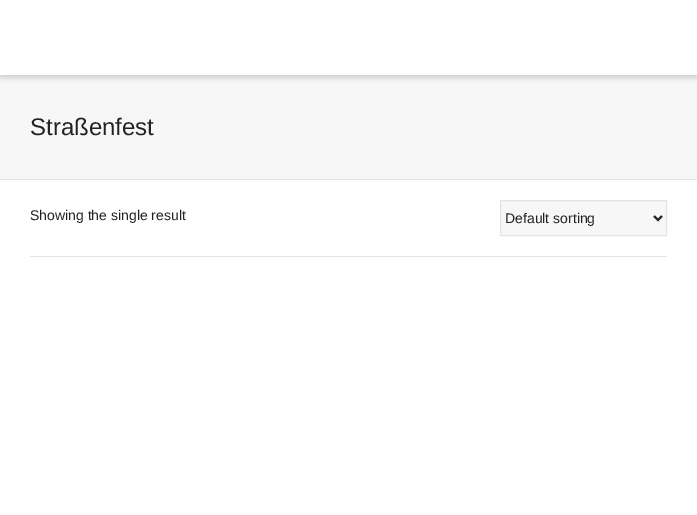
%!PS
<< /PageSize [697 515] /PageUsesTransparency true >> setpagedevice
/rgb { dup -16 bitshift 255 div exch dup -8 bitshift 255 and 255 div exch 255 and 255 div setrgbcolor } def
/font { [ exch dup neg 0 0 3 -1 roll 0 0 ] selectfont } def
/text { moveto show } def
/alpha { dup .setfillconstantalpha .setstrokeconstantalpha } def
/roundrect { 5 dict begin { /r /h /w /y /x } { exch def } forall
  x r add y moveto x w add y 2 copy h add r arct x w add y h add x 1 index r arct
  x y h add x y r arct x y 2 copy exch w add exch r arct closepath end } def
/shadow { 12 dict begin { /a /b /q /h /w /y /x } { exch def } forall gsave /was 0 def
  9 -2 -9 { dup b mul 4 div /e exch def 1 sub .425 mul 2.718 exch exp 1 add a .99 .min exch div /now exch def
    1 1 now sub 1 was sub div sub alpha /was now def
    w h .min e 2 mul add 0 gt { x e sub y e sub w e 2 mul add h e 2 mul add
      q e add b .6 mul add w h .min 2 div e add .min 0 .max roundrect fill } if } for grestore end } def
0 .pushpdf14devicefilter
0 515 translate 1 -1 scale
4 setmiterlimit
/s1 { /LiberationSans-Regular 24 font 16#222222 rgb } def
/s2 { /LiberationSans-Regular 14 font 16#222222 rgb } def
16#FFFFFF rgb
0 0 697 515 rectfill
16#F7F7F7 rgb
0 75 697 104 rectfill
16#000000 rgb
0 3 697 75 0 2.5 0.1 shadow
0 3 697 75 0 2.5 0.05 shadow
16#FFFFFF rgb
0 0 697 75 rectfill
16#E4E4E4 rgb
0 179 697 1 rectfill
s1
(Straßenfest) 30 135 text
s2
(Showing the single result) 30 220 text
16#F7F7F7 rgb
500.5 200.5 moveto 666.5 200.5 lineto 666.5 235.5 lineto 500.5 235.5 lineto closepath gsave fill grestore
16#E4E4E4 rgb
stroke
16#222222 rgb
2 setlinewidth
654 216 moveto 658 220 lineto 662 216 lineto stroke
(Default sorting) 505 223 text
16#E4E4E4 rgb
30 256 637 1 rectfill
.poppdf14devicefilter showpage
